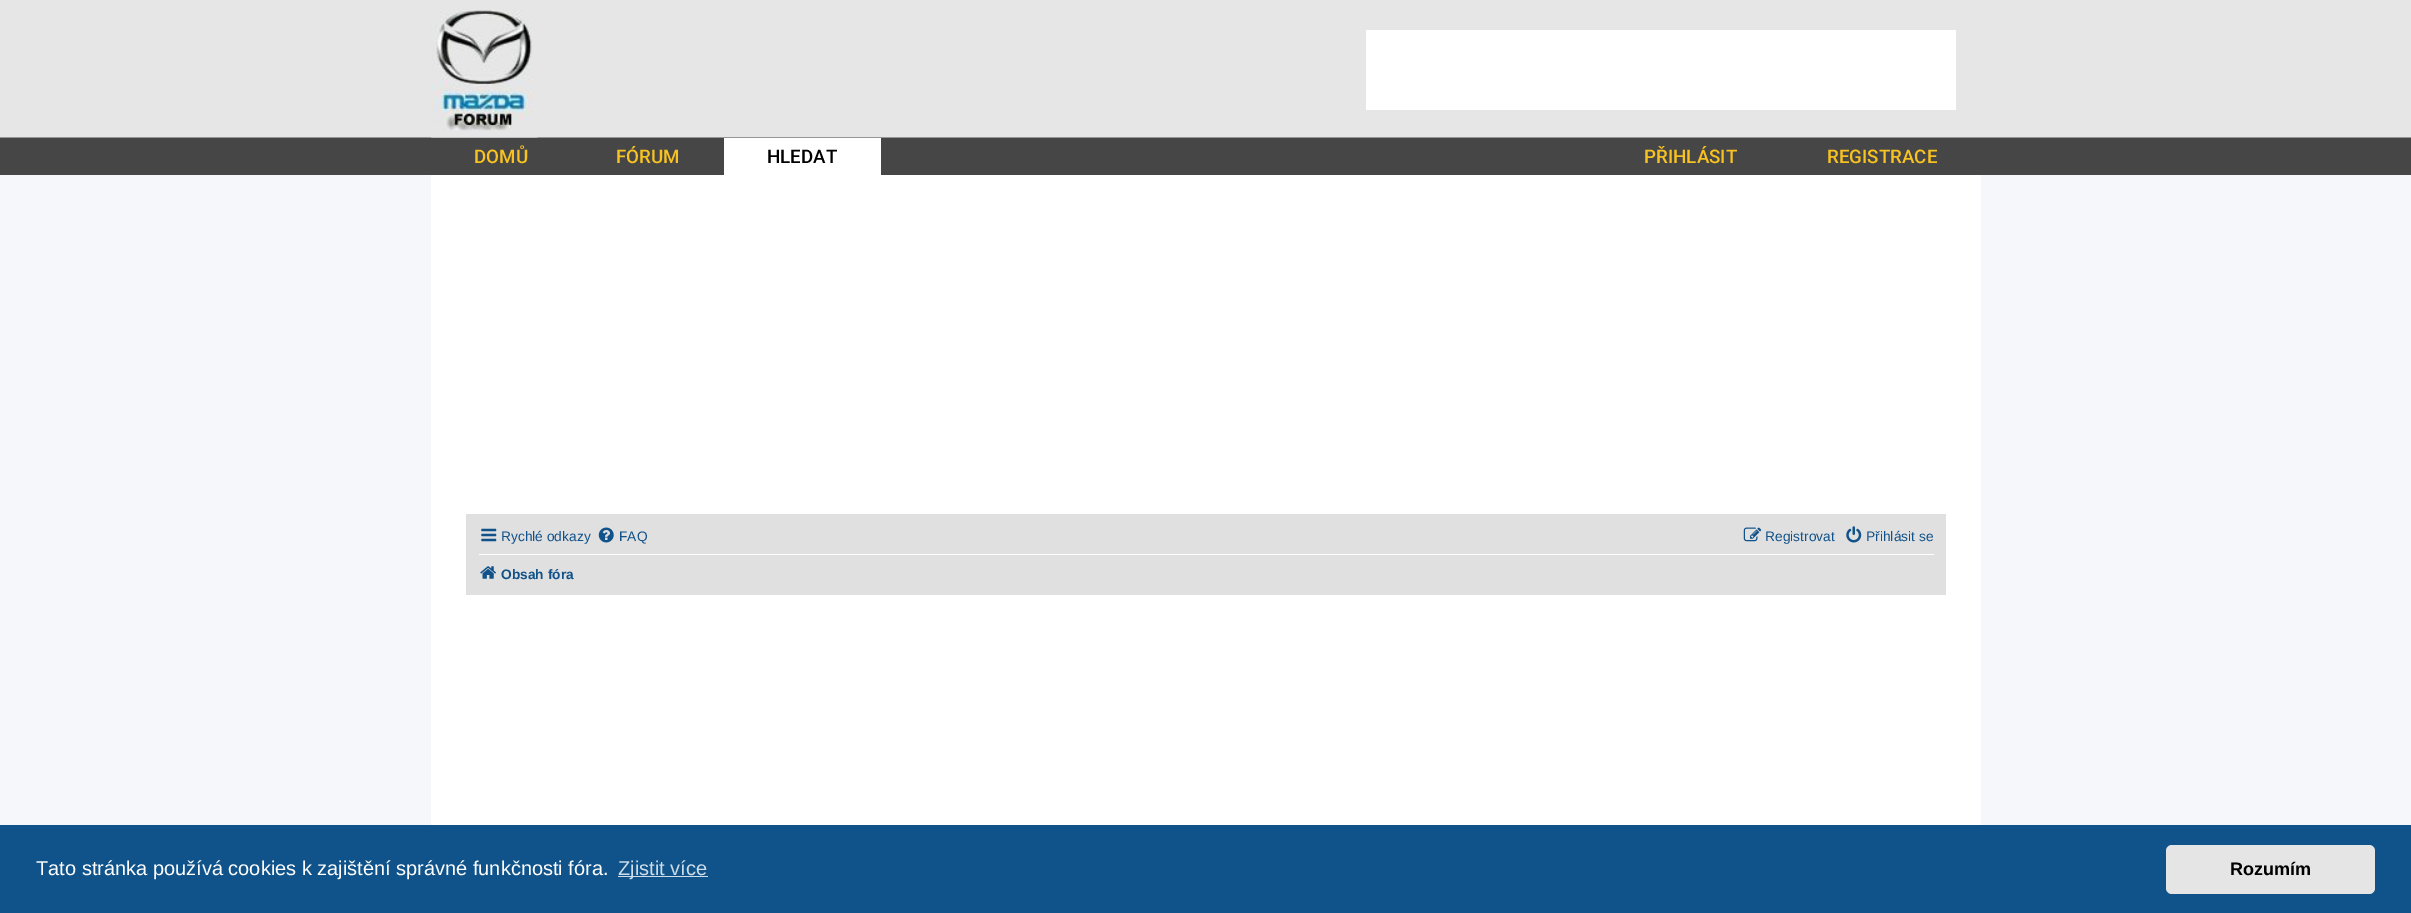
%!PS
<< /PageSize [2411 913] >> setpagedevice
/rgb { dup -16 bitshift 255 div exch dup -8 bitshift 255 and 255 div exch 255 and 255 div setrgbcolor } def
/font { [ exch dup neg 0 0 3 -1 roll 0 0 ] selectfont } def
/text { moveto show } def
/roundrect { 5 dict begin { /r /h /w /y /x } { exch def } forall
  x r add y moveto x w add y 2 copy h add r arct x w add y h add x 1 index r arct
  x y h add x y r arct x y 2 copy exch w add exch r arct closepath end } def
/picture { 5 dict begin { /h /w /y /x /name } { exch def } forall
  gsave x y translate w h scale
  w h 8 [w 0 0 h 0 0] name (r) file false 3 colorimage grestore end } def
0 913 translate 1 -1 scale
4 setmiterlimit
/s1 { /Roboto-Medium 18.75 font 16#F8C222 rgb } def
/s2 { /Roboto-Medium 18.75 font 16#000000 rgb } def
/s3 { /LiberationSans-Regular 13.75 font 16#105289 rgb } def
/s4 { /LiberationSans-Bold 13.75 font 16#105289 rgb } def
/s5 { /LiberationSans-Regular 20 font 16#FFFFFF rgb } def
/s6 { /LiberationSans-Regular 20 font 16#CFDDE8 rgb } def
/s7 { /LiberationSans-Bold 18 font 16#000000 rgb } def
16#F5F7FA rgb
0 0 2411 913 rectfill
(pic1.raw) 0 0 2411 175 picture
(pic2.raw) 431 10 107 128 picture
16#FFFFFF rgb
1366 30 590 80 rectfill
s1
(DOMŮ) 474 163 text
(FÓRUM) 616 163 text
16#FFFFFF rgb
724 138 157 37 rectfill
s2
(HLEDAT) 767 163 text
s1
(PŘIHLÁSIT) 1644 163 text
(REGISTRACE) 1827 163 text
16#FFFFFF rgb
431 175 1550 650 rectfill
16#E0E0E0 rgb
466 514 1480 81 rectfill
(pic3.raw) 481 528 16 14 picture
s3
(Rychlé odkazy) 501 541 text
(pic4.raw) 598 527 16 16 picture
(FAQ) 619 541 text
(pic5.raw) 1743 527 19 15 picture
(Registrovat) 1765 541 text
(pic6.raw) 1846 526 16 17 picture
(Přihlásit se) 1866 541 text
16#FFFFFF rgb
479 554 1455 1 rectfill
(pic7.raw) 480 566 16 13 picture
s4
(Obsah fóra) 501 579 text
16#0F538A rgb
0 825 2411 88 rectfill
s5
(Tato stránka používá cookies k zajištění správné funkčnosti fóra.) 36 875 text
16#CFDDE8 rgb
618 876 90 1 rectfill
(Zjistit více) 618 875 text
16#E5E5E5 rgb
2166 845 209 49 6 roundrect fill
s7
(Rozumím) 2230 875 text
showpage
